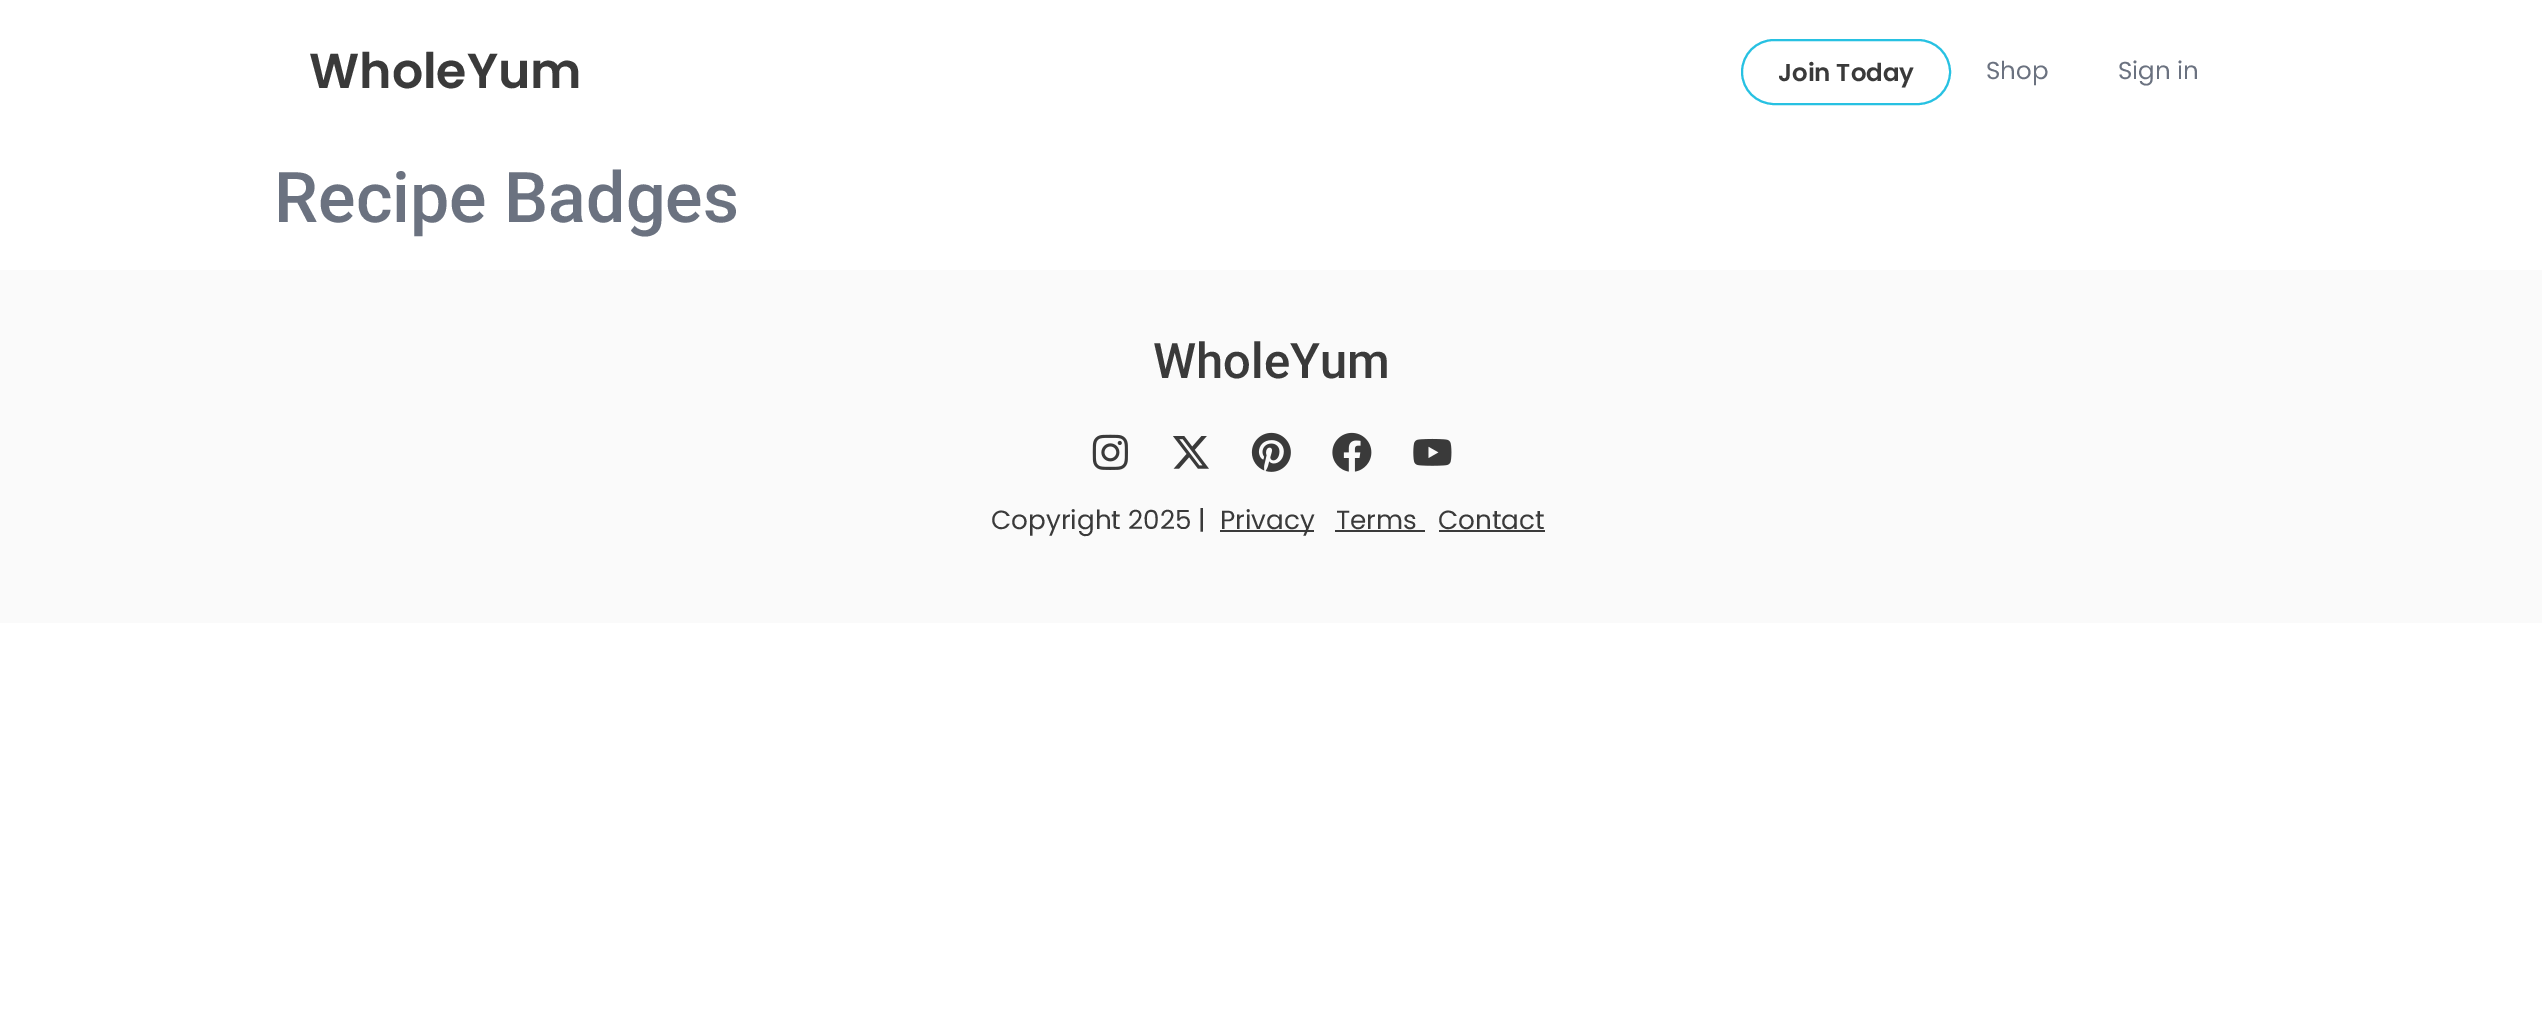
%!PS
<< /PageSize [2542 1009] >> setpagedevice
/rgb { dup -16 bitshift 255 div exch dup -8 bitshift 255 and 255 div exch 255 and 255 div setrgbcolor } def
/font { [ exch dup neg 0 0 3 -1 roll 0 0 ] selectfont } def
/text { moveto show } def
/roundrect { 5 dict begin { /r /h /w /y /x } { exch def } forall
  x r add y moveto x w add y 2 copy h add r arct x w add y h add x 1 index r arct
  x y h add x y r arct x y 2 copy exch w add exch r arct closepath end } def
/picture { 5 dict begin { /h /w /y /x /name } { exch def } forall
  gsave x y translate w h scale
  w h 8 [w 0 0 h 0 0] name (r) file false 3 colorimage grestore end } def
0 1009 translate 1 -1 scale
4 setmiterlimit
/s1 { /Poppins-SemiBold 49 font 16#3A3A3A rgb } def
/s2 { /Poppins-SemiBold 24.5 font 16#3A3A3A rgb } def
/s3 { /Poppins-Regular 24.5 font 16#6B7280 rgb } def
/s4 { /Roboto-Medium 70 font 16#6B7280 rgb } def
/s5 { /Roboto-Medium 49 font 16#3A3A3A rgb } def
/s6 { /Poppins-Regular 26.25 font 16#3A3A3A rgb } def
16#FFFFFF rgb
0 0 2542 1009 rectfill
s1
(WholeYum) 309 88 text
16#27C1E2 rgb
2 setlinewidth
1742 40 208 64 32 roundrect stroke
s2
(Join Today) 1778 81 text
s3
(Shop) 1986 79 text
(Sign in) 2118 79 text
s4
(Recipe Badges) 274 222 text
16#FAFAFA rgb
0 270 2542 353 rectfill
s5
(WholeYum) 1153 378 text
(pic1.raw) 1092 434 36 36 picture
(pic2.raw) 1173 436 36 33 picture
(pic3.raw) 1251 432 40 40 picture
(pic4.raw) 1332 432 40 40 picture
(pic5.raw) 1413 438 39 28 picture
s6
(Copyright 2025 |) 991 529 text
1220 530 94 2 rectfill
(Privacy) 1220 529 text
(Terms) 1336 529 text
1335 530 90 2 rectfill
(Contact) 1438 529 text
1439 530 106 2 rectfill
showpage
